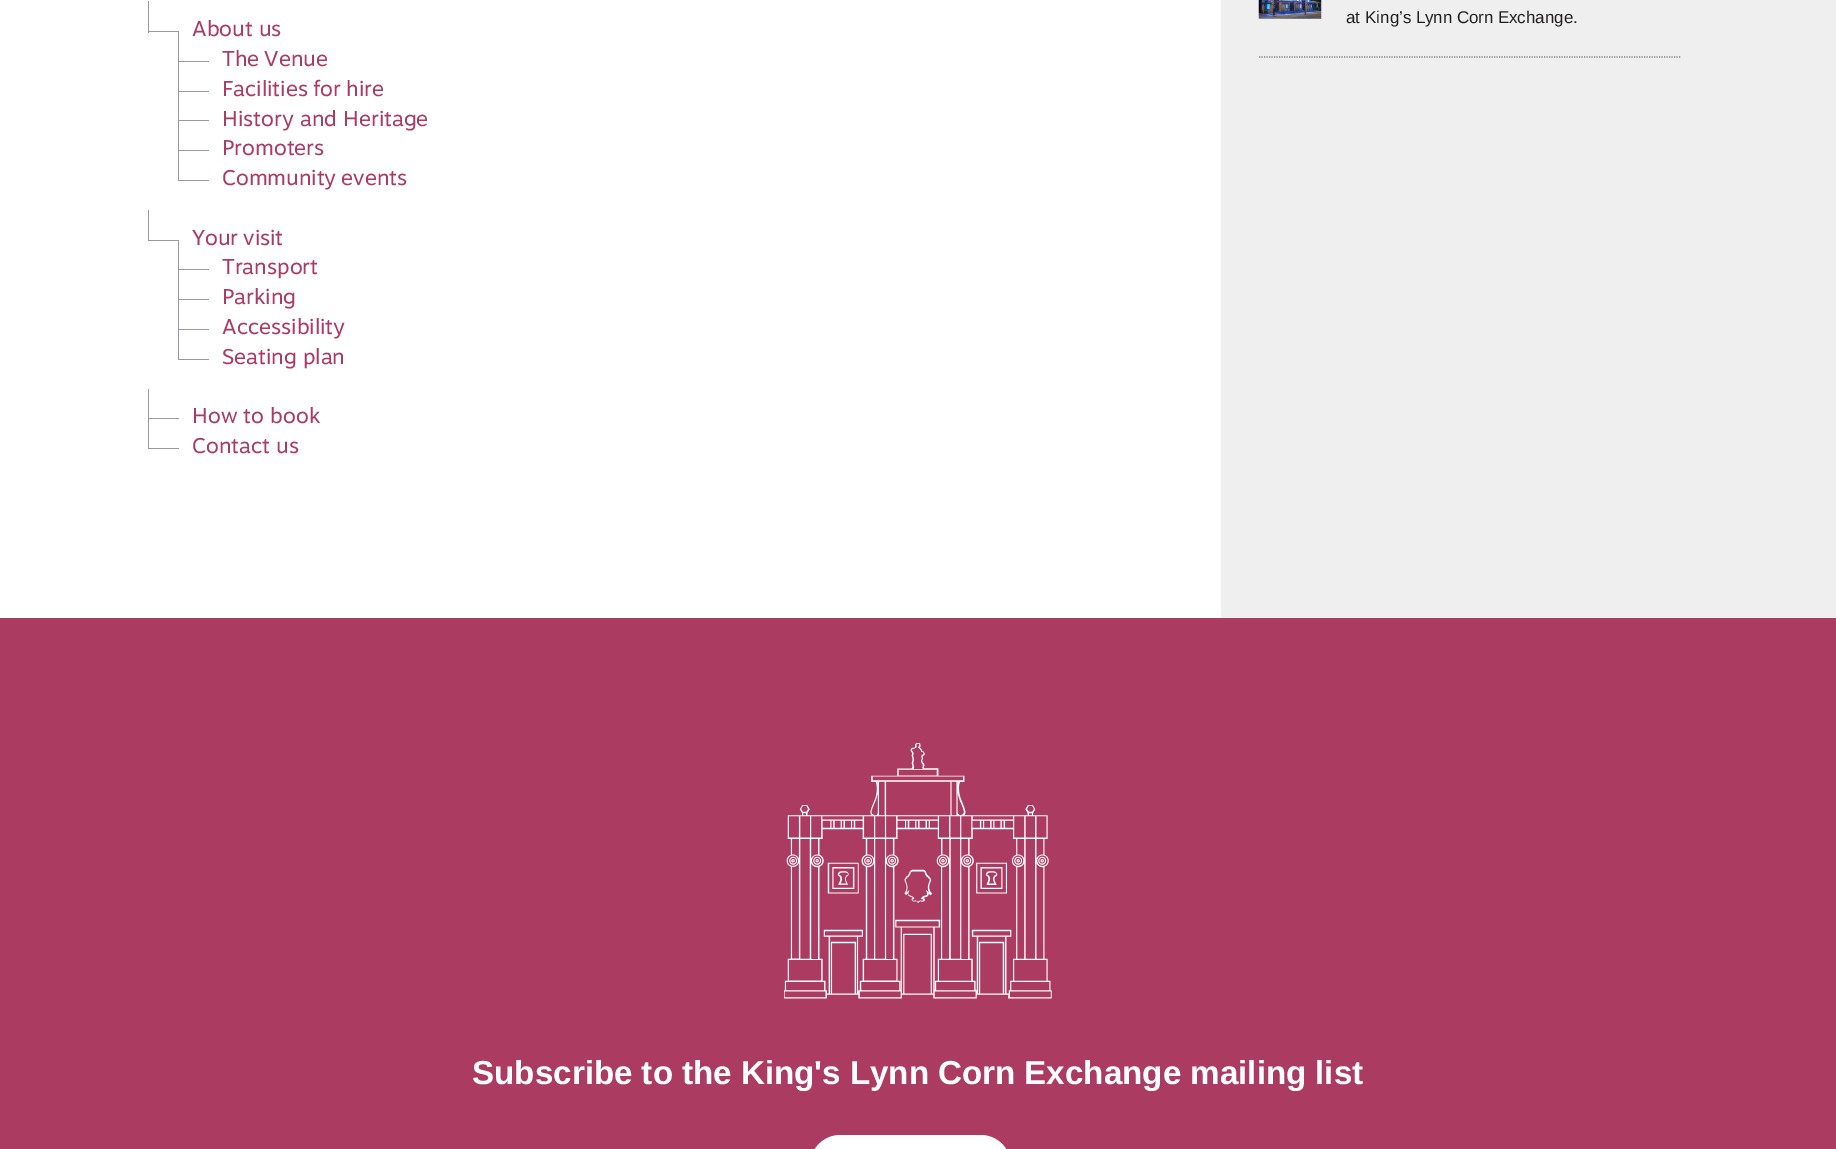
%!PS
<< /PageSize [1836 1149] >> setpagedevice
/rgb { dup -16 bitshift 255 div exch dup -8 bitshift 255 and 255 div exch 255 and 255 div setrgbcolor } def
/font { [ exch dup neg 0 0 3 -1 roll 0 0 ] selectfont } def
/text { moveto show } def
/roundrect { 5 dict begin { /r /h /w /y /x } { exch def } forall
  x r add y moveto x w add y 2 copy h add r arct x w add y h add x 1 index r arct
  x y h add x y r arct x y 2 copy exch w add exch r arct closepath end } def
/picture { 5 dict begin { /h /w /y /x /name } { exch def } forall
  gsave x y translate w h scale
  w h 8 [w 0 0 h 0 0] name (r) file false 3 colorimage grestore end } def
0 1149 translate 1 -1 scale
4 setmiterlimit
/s1 { /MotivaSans-Regular 21.25 font 16#AC3B61 rgb } def
/s2 { /LiberationSans-Regular 17 font 16#231F20 rgb } def
16#FFFFFF rgb
0 0 1836 1149 rectfill
16#9A98A2 rgb
148 31 31 1 rectfill
148 1 1 32 rectfill
s1
(About us) 192 36 text
16#9A98A2 rgb
178 61 31 1 rectfill
178 31 1 32 rectfill
16#AC3B61 rgb
222 66 moveto -1 0 32 (The Venue) widthshow
16#9A98A2 rgb
178 91 31 1 rectfill
178 61 1 32 rectfill
16#AC3B61 rgb
222 96 moveto -1 0 32 (Facilities for hire) widthshow
16#9A98A2 rgb
178 120 31 1 rectfill
178 91 1 30 rectfill
s1
(History and Heritage) 222 126 text
16#9A98A2 rgb
178 150 31 1 rectfill
178 120 1 31 rectfill
s1
(Promoters) 222 155 text
16#9A98A2 rgb
178 180 31 1 rectfill
178 150 1 31 rectfill
16#AC3B61 rgb
222 185 moveto -1 0 32 (Community events) widthshow
16#9A98A2 rgb
148 240 31 1 rectfill
148 210 1 31 rectfill
16#AC3B61 rgb
192 245 moveto -1 0 32 (Your visit) widthshow
16#9A98A2 rgb
178 269 31 1 rectfill
178 240 1 30 rectfill
s1
(Transport) 222 274 text
16#9A98A2 rgb
178 299 31 1 rectfill
178 269 1 31 rectfill
s1
(Parking) 222 304 text
16#9A98A2 rgb
178 329 31 1 rectfill
178 299 1 31 rectfill
s1
(Accessibility) 222 334 text
16#9A98A2 rgb
178 359 31 1 rectfill
178 329 1 31 rectfill
s1
(Seating plan) 222 364 text
16#9A98A2 rgb
148 418 31 1 rectfill
148 389 1 30 rectfill
s1
(How to book) 192 423 text
16#9A98A2 rgb
148 448 31 1 rectfill
148 418 1 31 rectfill
s1
(Contact us) 192 453 text
16#EFEFEF rgb
1221 0 615 618 rectfill
16#7F7F7F rgb
1.2 setlinewidth
[1.25 1.25] 0 setdash
1259 57 moveto 1681 57 lineto stroke
(pic1.raw) 1258 0 64 19 picture
s2
(at) 1346 23 text
1365 23 moveto -0.5 0 32 (King’s Lynn Corn Exchange.) widthshow
16#AC3B61 rgb
0 618 1836 531 rectfill
(pic2.raw) 784 743 268 256 picture
/LiberationSans-Bold 33.2 font
16#FFFFFF rgb
472 1084 moveto -0.25 0 32 (Subscribe to the King's Lynn Corn Exchange mailing list) widthshow
810 1135 201 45 30.5 roundrect fill
showpage
